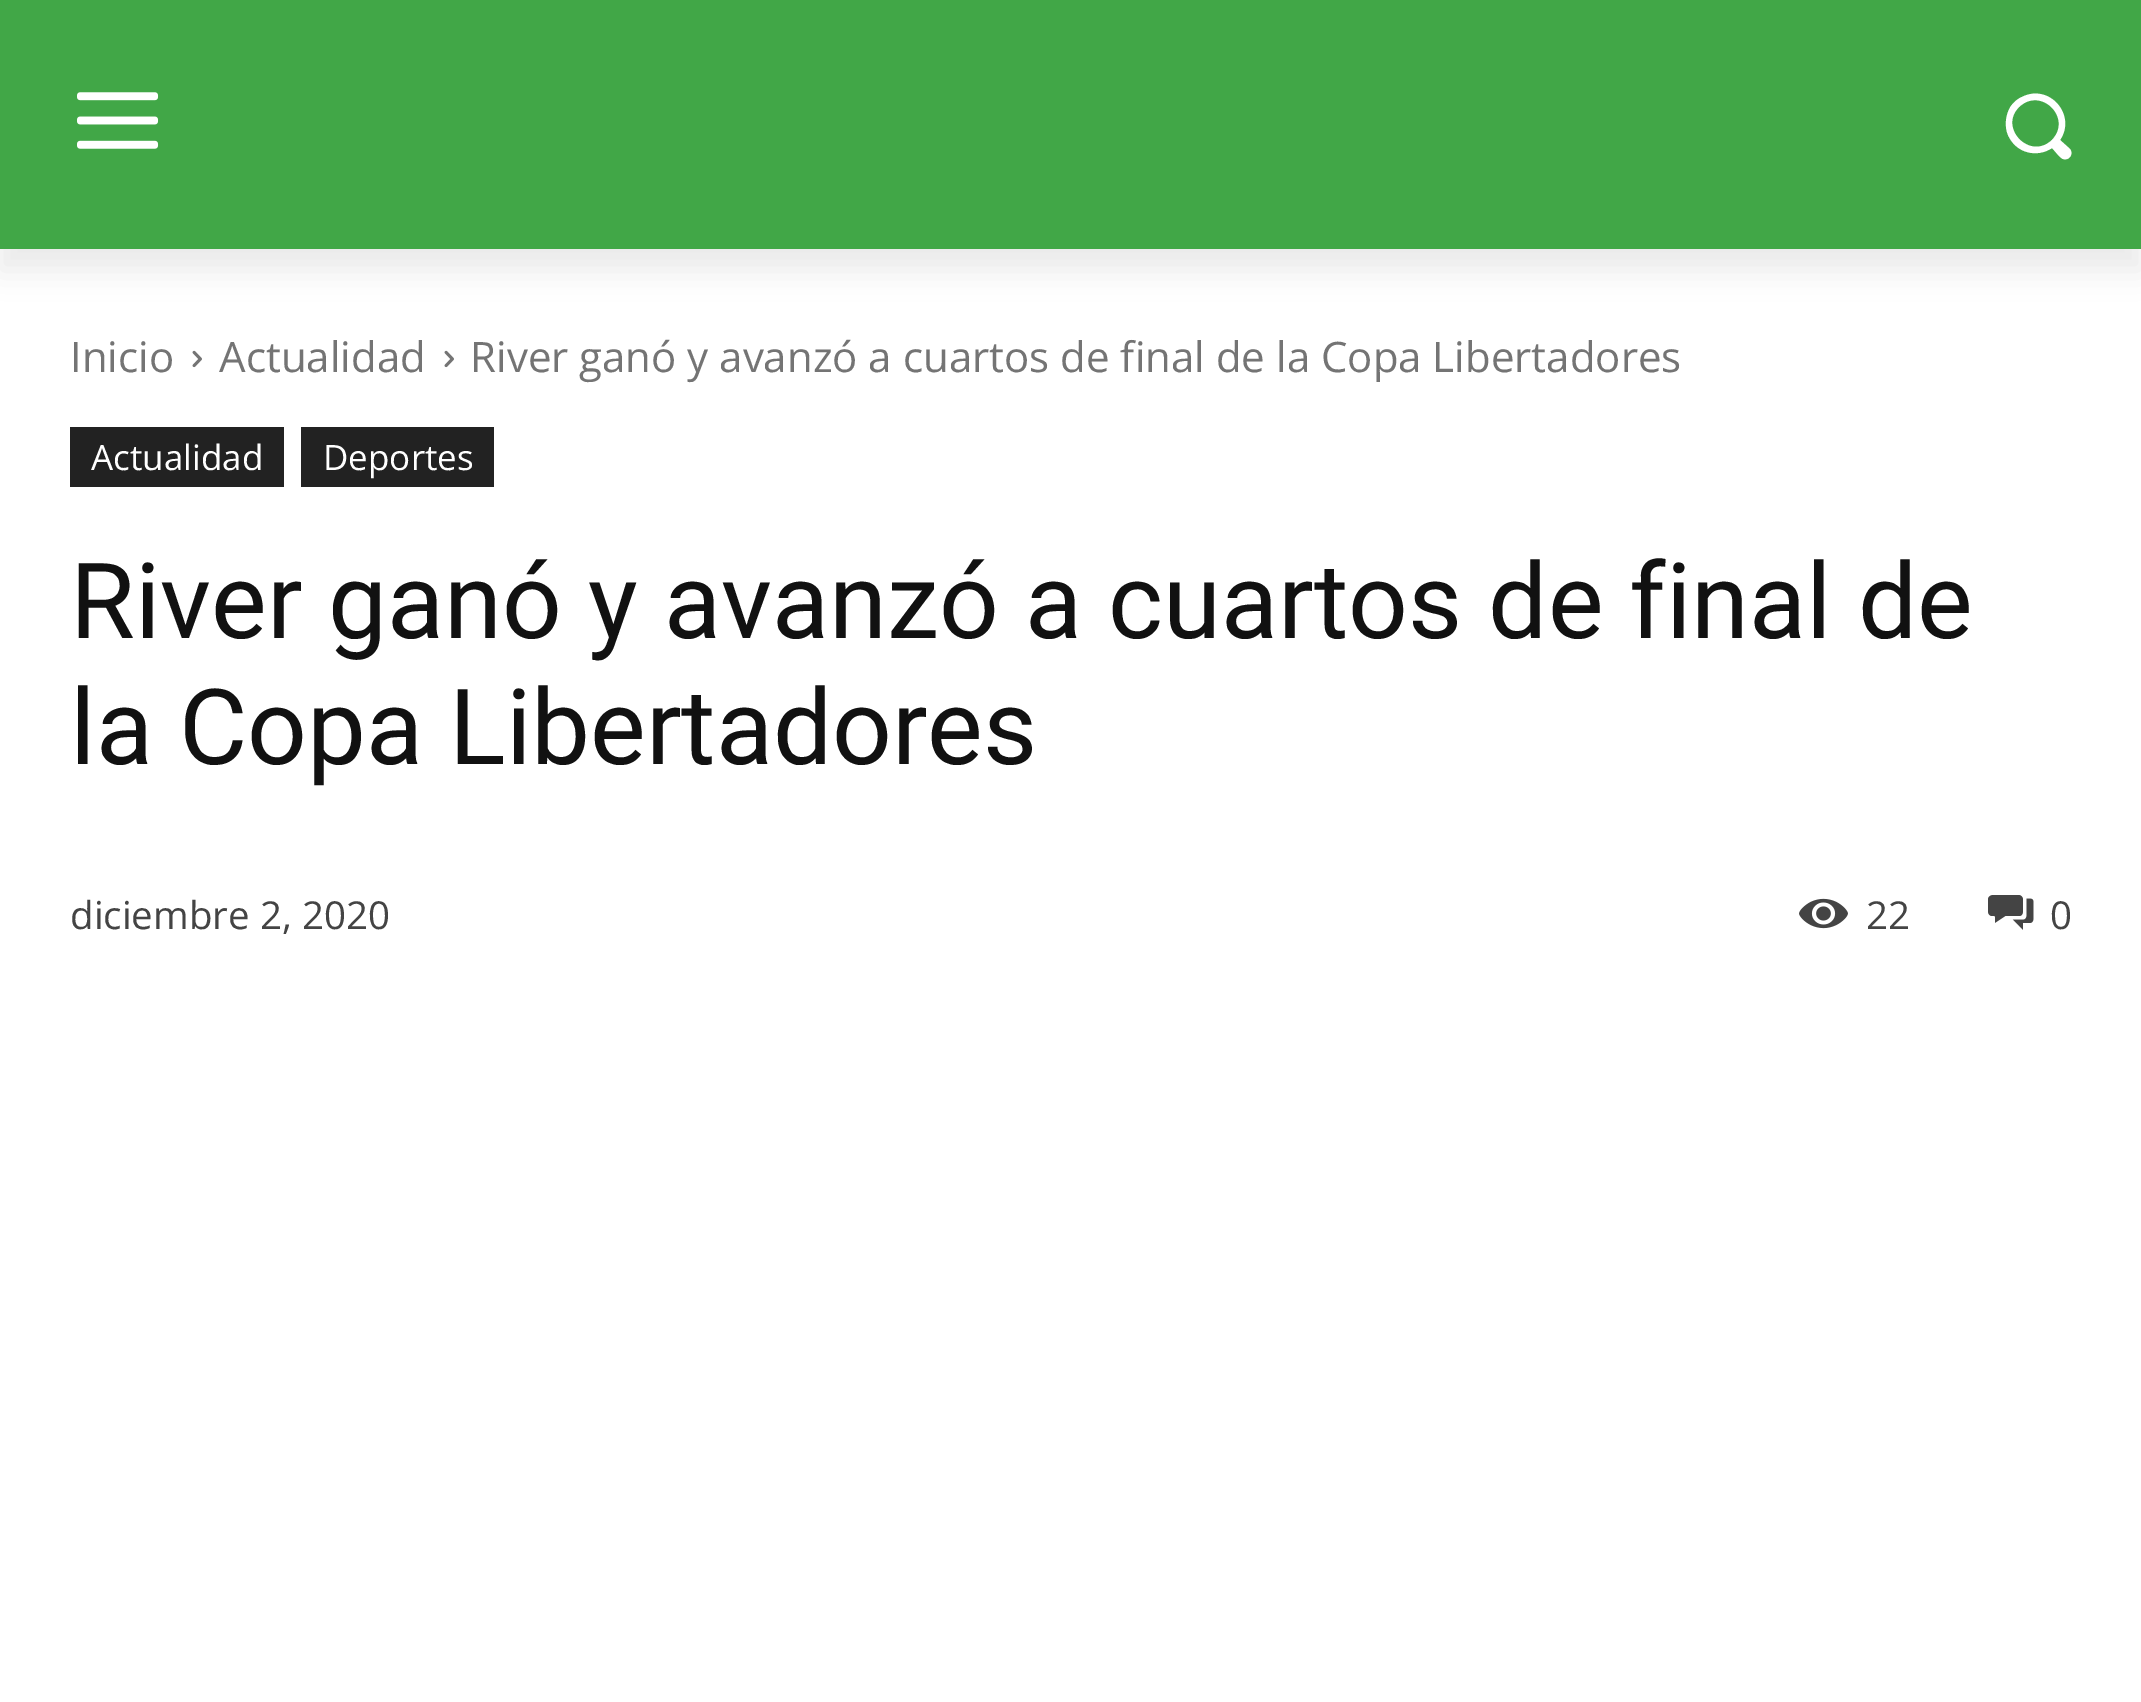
%!PS
<< /PageSize [2141 1702] /PageUsesTransparency true >> setpagedevice
/rgb { dup -16 bitshift 255 div exch dup -8 bitshift 255 and 255 div exch 255 and 255 div setrgbcolor } def
/font { [ exch dup neg 0 0 3 -1 roll 0 0 ] selectfont } def
/text { moveto show } def
/alpha { dup .setfillconstantalpha .setstrokeconstantalpha } def
/roundrect { 5 dict begin { /r /h /w /y /x } { exch def } forall
  x r add y moveto x w add y 2 copy h add r arct x w add y h add x 1 index r arct
  x y h add x y r arct x y 2 copy exch w add exch r arct closepath end } def
/shadow { 12 dict begin { /a /b /q /h /w /y /x } { exch def } forall gsave /was 0 def
  9 -2 -9 { dup b mul 4 div /e exch def 1 sub .425 mul 2.718 exch exp 1 add a .99 .min exch div /now exch def
    1 1 now sub 1 was sub div sub alpha /was now def
    w h .min e 2 mul add 0 gt { x e sub y e sub w e 2 mul add h e 2 mul add
      q e add b .6 mul add w h .min 2 div e add .min 0 .max roundrect fill } if } for grestore end } def
/picture { 5 dict begin { /h /w /y /x /name } { exch def } forall
  gsave x y translate w h scale
  w h 8 [w 0 0 h 0 0] name (r) file false 3 colorimage grestore end } def
0 .pushpdf14devicefilter
0 1702 translate 1 -1 scale
4 setmiterlimit
/s1 { /OpenSans-Regular 42 font 16#747474 rgb } def
/s2 { /OpenSans-Regular 35 font 16#FFFFFF rgb } def
/s3 { /Roboto-Regular 105 font 16#111111 rgb } def
/s4 { /OpenSans-Regular 38.5 font 16#444444 rgb } def
16#FFFFFF rgb
0 0 2141 1702 rectfill
16#41A747 rgb
0 0 2141 249 rectfill
(pic1.raw) 77 92 82 57 picture
16#FFFFFF rgb
2070 149 moveto 2060 140 lineto 2077 115 2049 83 2022 97 curveto 2015 100 2010 106 2008 112 curveto 2005 120 2005 130 2009 137 curveto 2017 153 2037 158 2052 148 curveto 2055 151 2060 158 2063 159 curveto 2069 161 2074 154 2070 149 curveto closepath 2052 140 moveto 2030 161 1998 128 2019 107 curveto 2041 86 2073 118 2052 140 curveto closepath fill
gsave
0 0 moveto 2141 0 lineto 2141 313 lineto 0 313 lineto closepath 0 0 moveto 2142 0 lineto 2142 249 lineto 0 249 lineto closepath eoclip newpath
16#000000 rgb
0 21 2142 249 0 14 0.08 shadow
grestore
s1
(Inicio) 70 372 text
(pic2.raw) 192 350 10 18 picture
(Actualidad) 219 372 text
(pic2.raw) 444 350 10 18 picture
(River ganó y avanzó a cuartos de final de la Copa Libertadores) 470 372 text
16#222222 rgb
70 427 214 60 rectfill
s2
(Actualidad) 91 470 text
16#222222 rgb
301 427 193 60 rectfill
s2
(Deportes) 323 470 text
s3
(River ganó y avanzó a cuartos de final de) 70 638 text
(la Copa Libertadores) 70 764 text
s4
(diciembre 2, 2020) 70 929 text
(pic3.raw) 1799 898 49 31 picture
(22) 1866 929 text
(pic4.raw) 1988 895 46 35 picture
(0) 2050 929 text
.poppdf14devicefilter showpage
